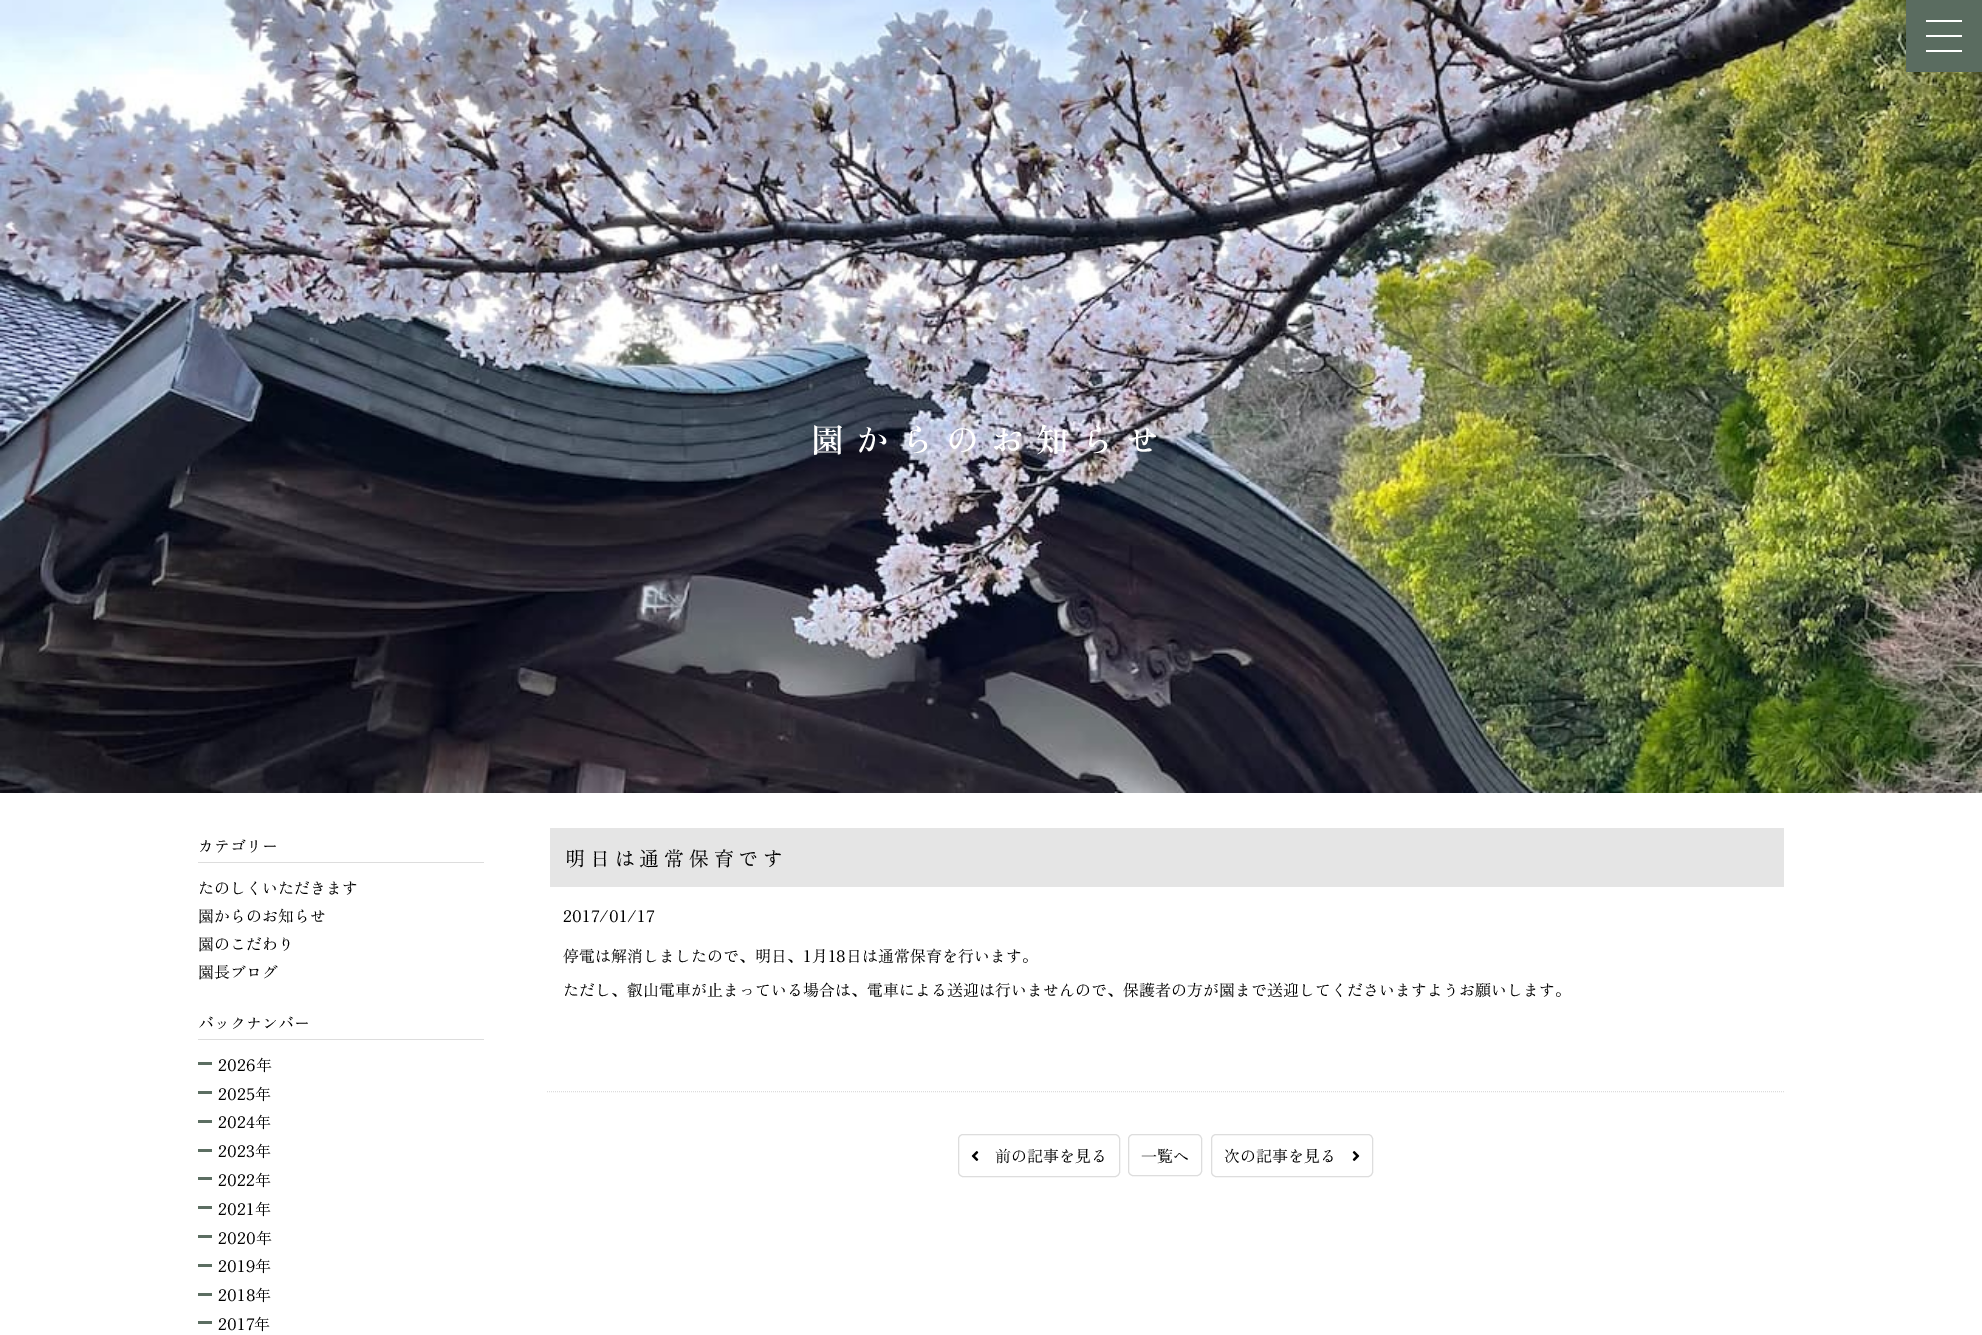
%!PS
<< /PageSize [1982 1335] >> setpagedevice
/rgb { dup -16 bitshift 255 div exch dup -8 bitshift 255 and 255 div exch 255 and 255 div setrgbcolor } def
/font { [ exch dup neg 0 0 3 -1 roll 0 0 ] selectfont } def
/text { moveto show } def
/roundrect { 5 dict begin { /r /h /w /y /x } { exch def } forall
  x r add y moveto x w add y 2 copy h add r arct x w add y h add x 1 index r arct
  x y h add x y r arct x y 2 copy exch w add exch r arct closepath end } def
/picture { 5 dict begin { /h /w /y /x /name } { exch def } forall
  gsave x y translate w h scale
  w h 8 [w 0 0 h 0 0] name (r) file false 3 colorimage grestore end } def
0 1335 translate 1 -1 scale
4 setmiterlimit
/s1 { /ZenOldMincho-Regular 16 font 16#000000 rgb } def
16#FFFFFF rgb
0 0 1982 1335 rectfill
(pic1.raw) 0 0 1982 793 picture
16#5A6C60 rgb
1906 0 76 72 rectfill
16#FFFFFF rgb
1926 20 36 2 rectfill
1926 35 36 2 rectfill
1926 50 36 2 rectfill
/ZenOldMincho-SemiBold 33 font
811 452 moveto 12 0 (園からのお知らせ) ashow
16#DDDDDD rgb
198 862 286 1 rectfill
s1
(カテゴリー) 198 852 text
(たのしくいただきます) 198 894 text
(園からのお知らせ) 198 922 text
(園のこだわり) 198 950 text
(園長ブログ) 198 978 text
16#DDDDDD rgb
198 1039 286 1 rectfill
s1
(バックナンバー) 198 1029 text
16#5C6E62 rgb
198 1062 14 3 rectfill
s1
(2026年) 218 1071 text
16#5C6E62 rgb
198 1091 14 3 rectfill
s1
(2025年) 218 1100 text
16#5C6E62 rgb
198 1120 14 3 rectfill
s1
(2024年) 218 1128 text
16#5C6E62 rgb
198 1149 14 3 rectfill
s1
(2023年) 218 1157 text
16#5C6E62 rgb
198 1177 14 3 rectfill
s1
(2022年) 218 1186 text
16#5C6E62 rgb
198 1206 14 3 rectfill
s1
(2021年) 218 1215 text
16#5C6E62 rgb
198 1235 14 3 rectfill
s1
(2020年) 218 1244 text
16#5C6E62 rgb
198 1264 14 3 rectfill
s1
(2019年) 218 1272 text
16#5C6E62 rgb
198 1293 14 3 rectfill
s1
(2018年) 218 1301 text
16#5C6E62 rgb
198 1321 14 3 rectfill
s1
(2017年) 218 1330 text
16#DDDDDD rgb
[1 1] 0 setdash
547 1091.5 moveto 1784 1091.5 lineto stroke
16#E5E5E5 rgb
550 828 1234 59 rectfill
/ZenOldMincho-Regular 20 font
16#000000 rgb
565 866 moveto 4.75 0 (明日は通常保育です) ashow
s1
(2017/01/17) 563 922 text
(停電は解消しましたので、明日、1月18日は通常保育を行います。) 563 962 text
(ただし、叡山電車が止まっている場合は、電車による送迎は行いませんので、保護者の方が園まで送迎してくださいますようお願いします。) 563 996 text
16#DDDDDD rgb
[] 0 setdash
958.5 1134.5 161 42 4.5 roundrect stroke
(pic2.raw) 971 1151 8 10 picture
s1
(前の記事を見る) 995 1162 text
16#DDDDDD rgb
1128.5 1134.5 73 41 4.5 roundrect stroke
s1
(一覧へ) 1141 1162 text
16#DDDDDD rgb
1211.5 1134.5 161 42 4.5 roundrect stroke
s1
(次の記事を見る) 1224 1162 text
(pic3.raw) 1352 1151 8 10 picture
showpage
